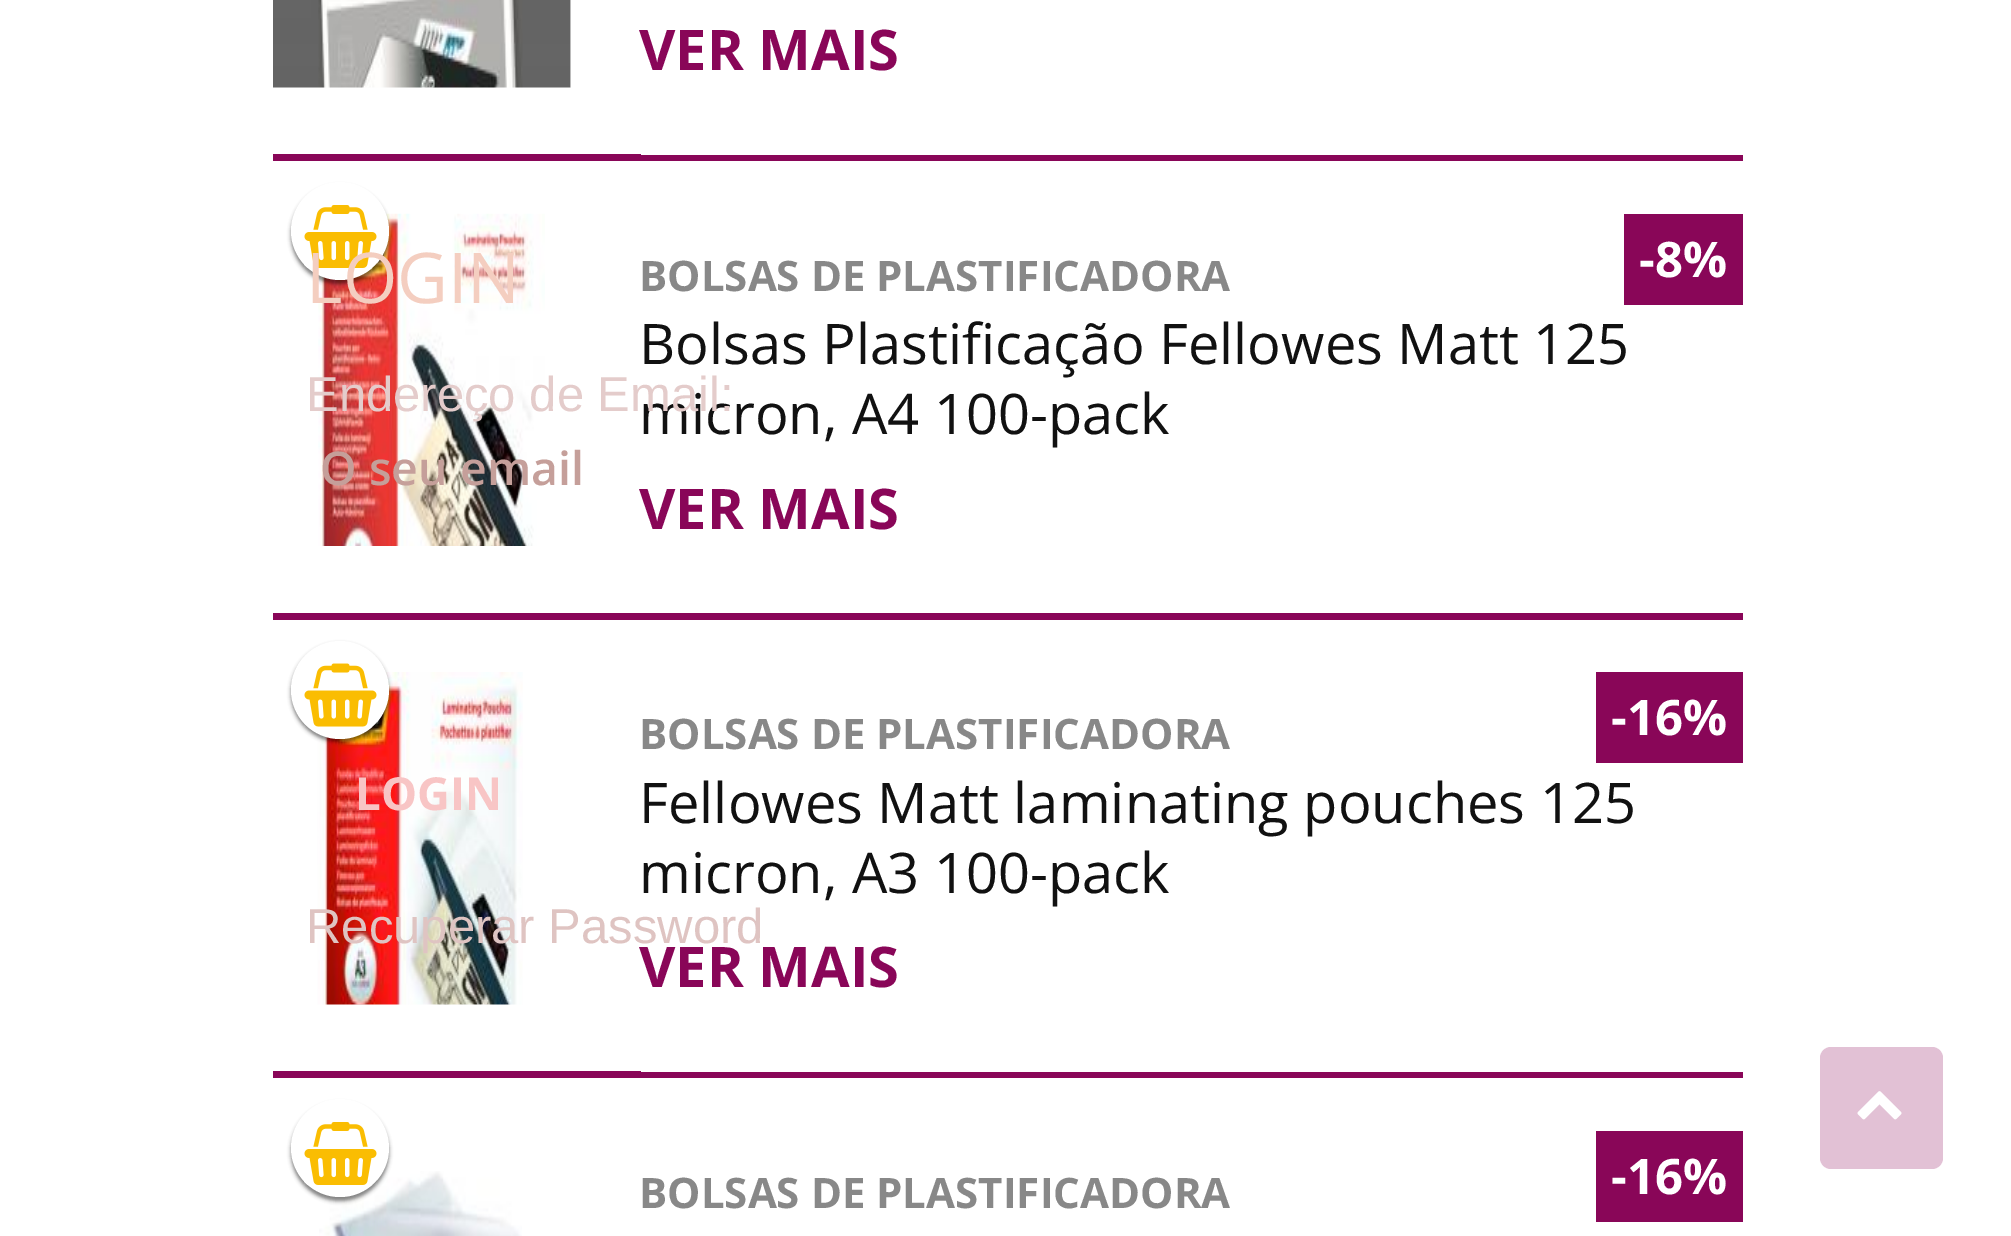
%!PS
<< /PageSize [2011 1236] /PageUsesTransparency true >> setpagedevice
/rgb { dup -16 bitshift 255 div exch dup -8 bitshift 255 and 255 div exch 255 and 255 div setrgbcolor } def
/font { [ exch dup neg 0 0 3 -1 roll 0 0 ] selectfont } def
/text { moveto show } def
/alpha { dup .setfillconstantalpha .setstrokeconstantalpha } def
/circle { newpath 0 360 arc closepath } def
/roundrect { 5 dict begin { /r /h /w /y /x } { exch def } forall
  x r add y moveto x w add y 2 copy h add r arct x w add y h add x 1 index r arct
  x y h add x y r arct x y 2 copy exch w add exch r arct closepath end } def
/shadow { 12 dict begin { /a /b /q /h /w /y /x } { exch def } forall gsave /was 0 def
  9 -2 -9 { dup b mul 4 div /e exch def 1 sub .425 mul 2.718 exch exp 1 add a .99 .min exch div /now exch def
    1 1 now sub 1 was sub div sub alpha /was now def
    w h .min e 2 mul add 0 gt { x e sub y e sub w e 2 mul add h e 2 mul add
      q e add b .6 mul add w h .min 2 div e add .min 0 .max roundrect fill } if } for grestore end } def
/picture { 5 dict begin { /h /w /y /x /name } { exch def } forall
  gsave x y translate w h scale
  w h 8 [w 0 0 h 0 0] name (r) file false 3 colorimage grestore end } def
0 .pushpdf14devicefilter
0 1236 translate 1 -1 scale
4 setmiterlimit
/s1 { /OpenSans-Regular 70 font 16#F4CEC0 rgb } def
/s2 { /OpenSans-Regular 56 font 16#111111 rgb } def
/s3 { /LiberationSans-Regular 49 font 16#E4CCCB rgb } def
/s4 { /OpenSans-SemiBold 46.5 font 16#C59F9A rgb } def
/s5 { /OpenSans-Bold 45.5 font 16#F8C5C5 rgb } def
/s6 { /LiberationSans-Regular 49 font 16#DFC4C2 rgb } def
/s7 { /OpenSans-Bold 56 font 16#890658 rgb } def
/s8 { /OpenSans-Bold 42 font 16#888888 rgb } def
/s9 { /OpenSans-Bold 49 font 16#FFFFFF rgb } def
16#FFFFFF rgb
0 0 2011 1236 rectfill
(pic4.raw) 318 213 227 333 picture
16#000000 rgb
291 186 98 98 49 2 0.5 shadow
16#FFFFFF rgb
340 231 49 circle fill
(pic3.raw) 304 205 73 63 picture
s1
(LOGIN) 306 303 text
s2
(micron, A4 100-pack) 639 434 text
s3
(Endereço de Email:) 306 411 text
s4
(O seu email) 320 485 text
(pic6.raw) 317 672 206 333 picture
s5
(LOGIN) 355 810 text
s6
(Recuperar Password) 306 943 text
16#890658 rgb
273 154 1470 7 rectfill
(pic1.raw) 273 0 298 88 picture
(pic2.raw) 570 0 1 88 picture
16#FFFFFF rgb
641 154 1102 1 rectfill
s7
(VER MAIS) 639 70 text
273 613 1470 7 rectfill
s8
(BOLSAS DE PLASTIFICADORA) 639 291 text
s2
(Bolsas Plastificação Fellowes Matt 125) 639 364 text
s7
(VER MAIS) 639 529 text
1624 214 119 91 rectfill
s9
(-8%) 1639 277 text
16#890658 rgb
273 1071 1470 7 rectfill
16#000000 rgb
291 644 98 98 49 2 0.5 shadow
16#FFFFFF rgb
340 690 49 circle fill
(pic5.raw) 304 663 73 64 picture
641 1071 1102 1 rectfill
s8
(BOLSAS DE PLASTIFICADORA) 639 749 text
s2
(Fellowes Matt laminating pouches 125) 639 823 text
(micron, A3 100-pack) 639 893 text
s7
(VER MAIS) 639 987 text
1596 672 147 91 rectfill
s9
(-16%) 1611 735 text
(pic8.raw) 319 1171 203 65 picture
16#000000 rgb
291 1103 98 98 49 2 0.5 shadow
16#FFFFFF rgb
340 1148 49 circle fill
(pic7.raw) 304 1122 73 63 picture
16#890658 rgb
1596 1131 147 91 rectfill
s9
(-16%) 1611 1194 text
s8
(BOLSAS DE PLASTIFICADORA) 639 1208 text
16#E2C1D5 rgb
1820 1047 123 122 11 roundrect fill
(pic9.raw) 1857 1091 45 29 picture
.poppdf14devicefilter showpage
